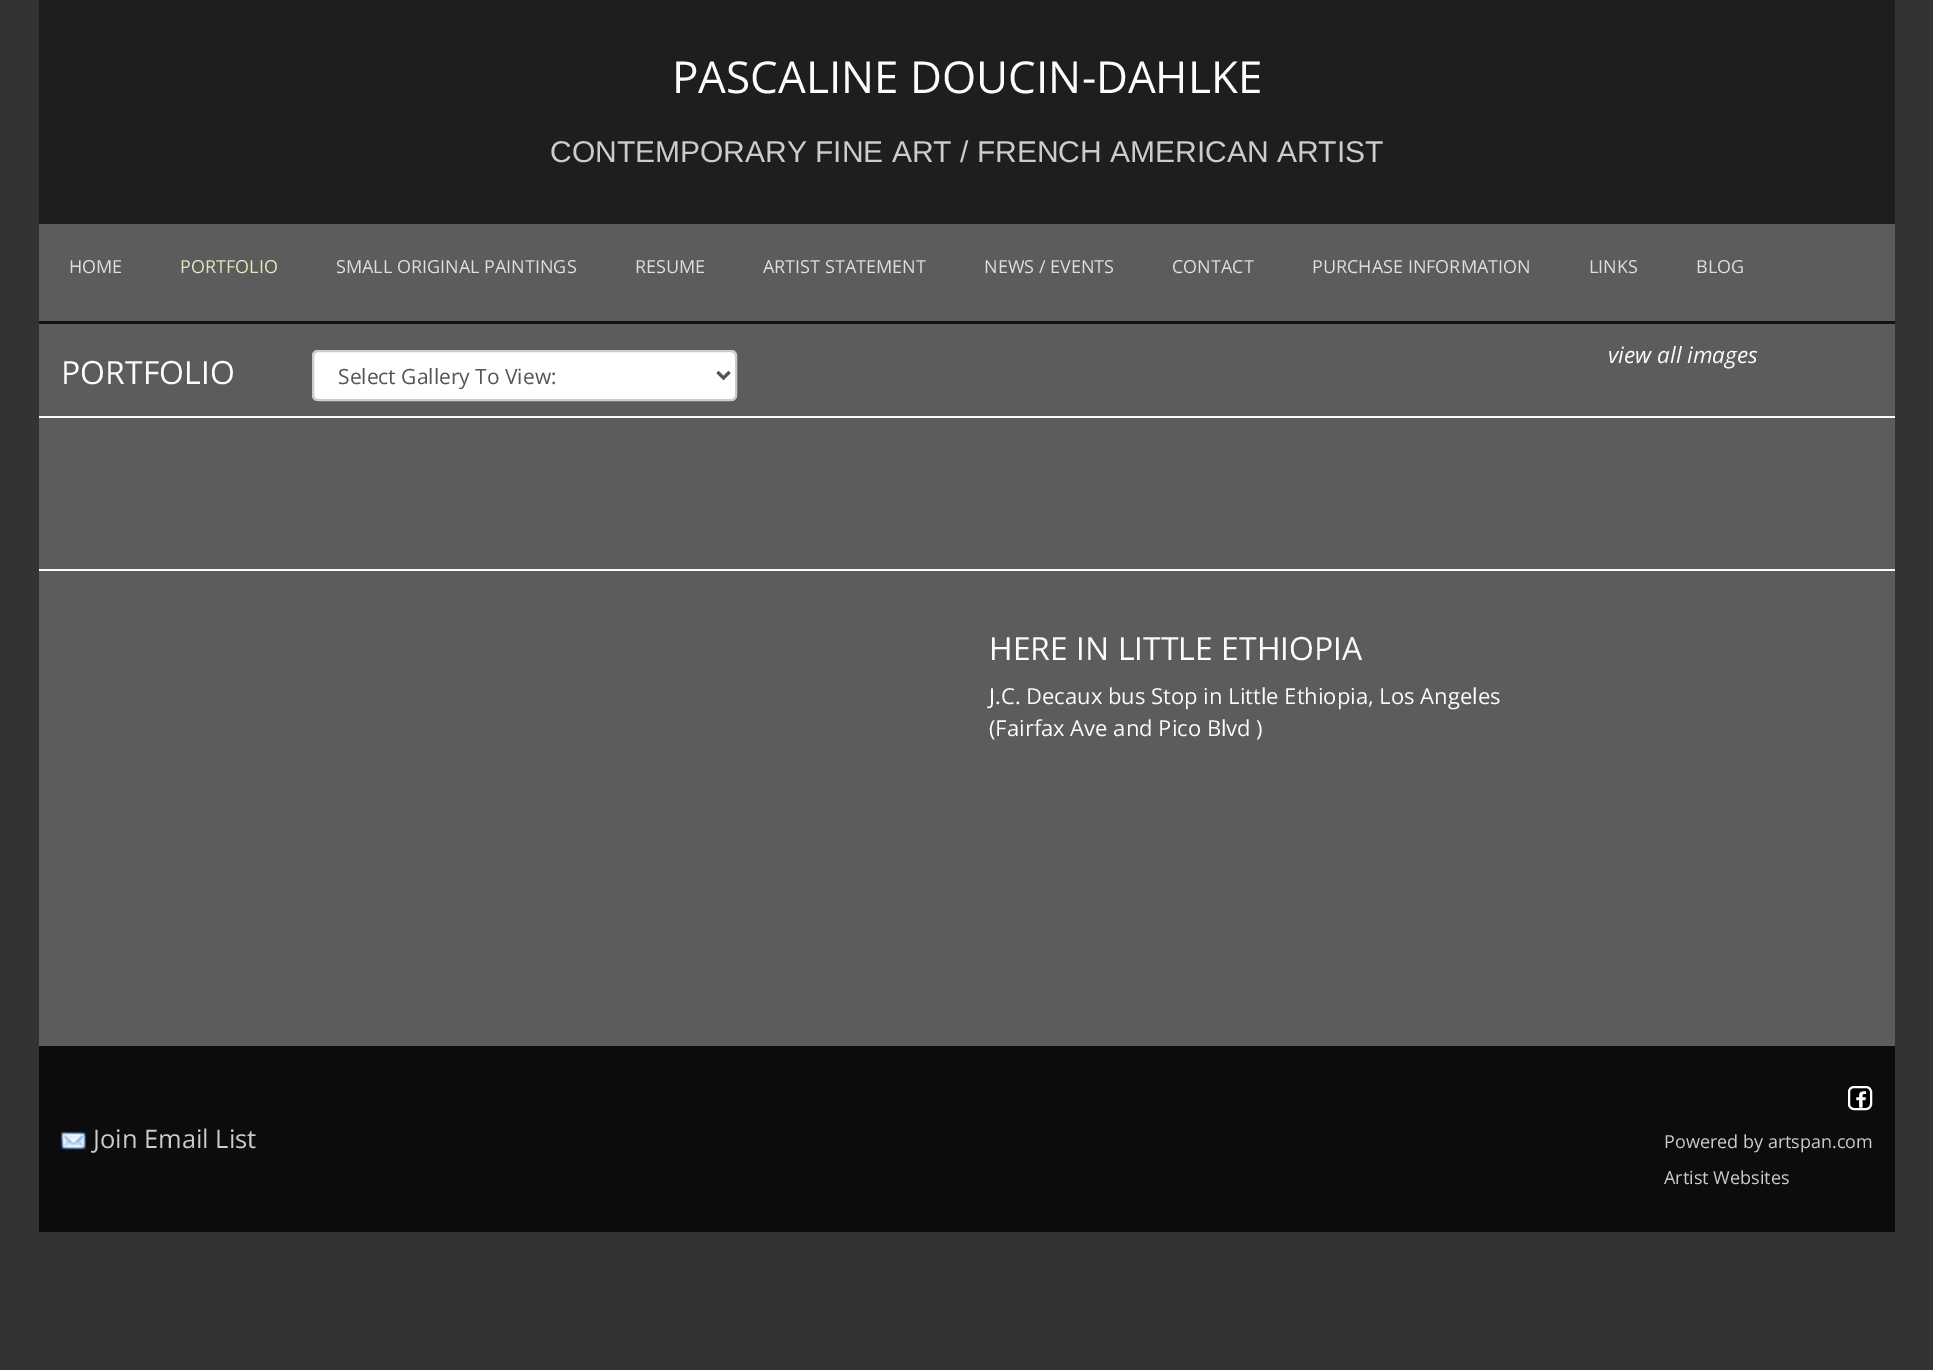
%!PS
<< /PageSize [1933 1370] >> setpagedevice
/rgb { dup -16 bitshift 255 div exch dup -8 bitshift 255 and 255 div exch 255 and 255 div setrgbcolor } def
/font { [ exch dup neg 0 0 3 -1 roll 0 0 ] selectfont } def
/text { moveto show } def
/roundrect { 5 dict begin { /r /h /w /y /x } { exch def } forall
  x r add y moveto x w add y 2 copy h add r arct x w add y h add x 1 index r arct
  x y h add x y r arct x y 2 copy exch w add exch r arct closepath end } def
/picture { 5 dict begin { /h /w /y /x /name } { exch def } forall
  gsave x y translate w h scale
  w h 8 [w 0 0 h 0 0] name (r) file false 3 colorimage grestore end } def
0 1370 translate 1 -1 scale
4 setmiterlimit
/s1 { /OpenSans-Regular 44 font 16#FCFCFD rgb } def
/s2 { /LiberationSans-Regular 30 font 16#CCCCCC rgb } def
/s3 { /OpenSans-Regular 18 font 16#DFDFE2 rgb } def
/s4 { /OpenSans-Regular 18 font 16#DEE9BE rgb } def
/s5 { /OpenSans-Italic 22.5 font 16#FCFCFD rgb } def
/s6 { /OpenSans-Regular 32 font 16#FCFCFD rgb } def
/s7 { /OpenSans-Regular 21 font 16#555555 rgb } def
/s8 { /OpenSans-Regular 22 font 16#FCFCFD rgb } def
/s9 { /OpenSans-Regular 25.5 font 16#CCCCCC rgb } def
/s10 { /OpenSans-Regular 18 font 16#CCCCCC rgb } def
16#333333 rgb
0 0 1933 1370 rectfill
16#1E1E1F rgb
39 0 1856 224 rectfill
s1
(PASCALINE DOUCIN-DAHLKE) 672 93 text
s2
(CONTEMPORARY FINE ART / FRENCH AMERICAN ARTIST) 550 162 text
16#5C5C5C rgb
39 224 1856 97 rectfill
16#111111 rgb
39 321 1856 3 rectfill
s3
(HOME) 69 273 text
s4
(PORTFOLIO) 180 273 text
s3
(SMALL ORIGINAL PAINTINGS) 336 273 text
(RESUME) 635 273 text
(ARTIST STATEMENT) 763 273 text
(NEWS / EVENTS) 984 273 text
(CONTACT) 1172 273 text
(PURCHASE INFORMATION) 1312 273 text
(LINKS) 1589 273 text
(BLOG) 1696 273 text
16#5C5C5C rgb
39 324 1856 722 rectfill
s5
(view all images) 1608 363 text
s6
(PORTFOLIO) 61 384 text
16#FFFFFF rgb
312 350 425 51 6 roundrect fill
16#ECECEC rgb
318 352 moveto 730 352 lineto 733 352 735 355 735 357 curveto 735 354 733 351 730 351 curveto 319 351 lineto 316 351 314 354 314 357 curveto 314 355 316 352 318 352 curveto closepath fill
16#CCCCCC rgb
2 setlinewidth
313 351 423 49 5 roundrect stroke
16#555555 rgb
3 setlinewidth
717.5 372 moveto 723.5 378 lineto 729.5 372 lineto stroke
s7
(Select Gallery To View:) 338 384 text
16#FCFCFD rgb
39 416 1856 2 rectfill
39 569 1856 2 rectfill
s6
(HERE IN LITTLE ETHIOPIA) 989 660 text
s8
(J.C. Decaux bus Stop in Little Ethiopia, Los Angeles) 989 704 text
(\(Fairfax Ave and Pico Blvd \)) 989 736 text
16#0C0C0D rgb
39 1046 1856 186 rectfill
16#000000 rgb
1849 1087 22 22 5 roundrect gsave fill grestore
16#FFFFFF rgb
2 setlinewidth
stroke
(pic1.raw) 1856 1091 10 17 picture
(pic2.raw) 61 1132 25 18 picture
s9
(Join Email List) 93 1148 text
s10
(Powered by artspan.com) 1664 1148 text
(Artist Websites) 1664 1184 text
showpage
